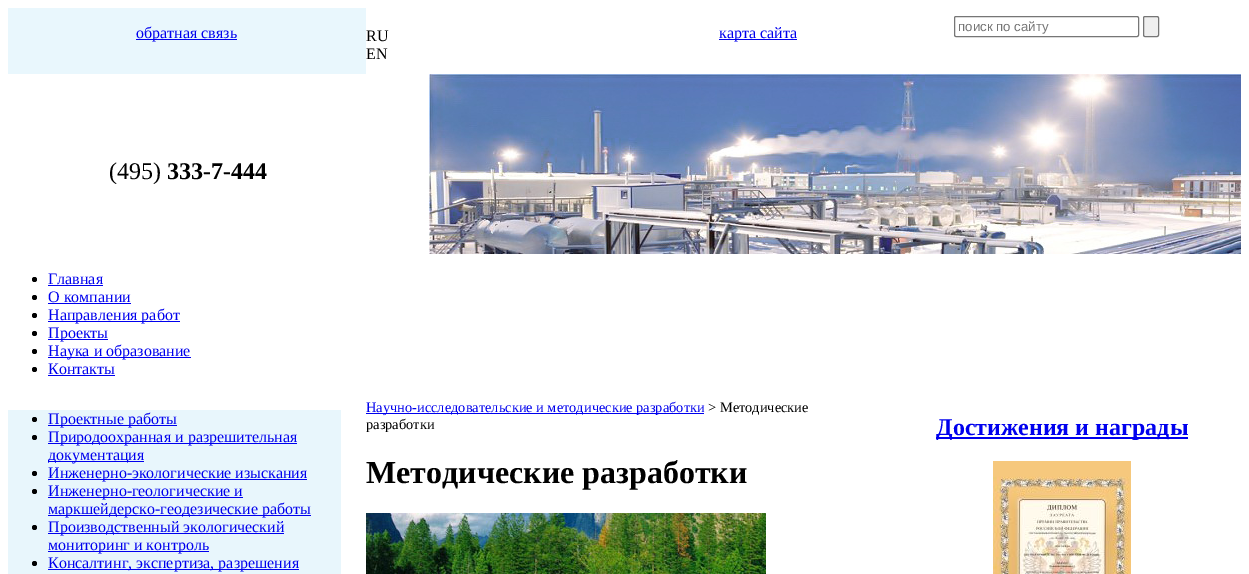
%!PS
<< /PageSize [1249 574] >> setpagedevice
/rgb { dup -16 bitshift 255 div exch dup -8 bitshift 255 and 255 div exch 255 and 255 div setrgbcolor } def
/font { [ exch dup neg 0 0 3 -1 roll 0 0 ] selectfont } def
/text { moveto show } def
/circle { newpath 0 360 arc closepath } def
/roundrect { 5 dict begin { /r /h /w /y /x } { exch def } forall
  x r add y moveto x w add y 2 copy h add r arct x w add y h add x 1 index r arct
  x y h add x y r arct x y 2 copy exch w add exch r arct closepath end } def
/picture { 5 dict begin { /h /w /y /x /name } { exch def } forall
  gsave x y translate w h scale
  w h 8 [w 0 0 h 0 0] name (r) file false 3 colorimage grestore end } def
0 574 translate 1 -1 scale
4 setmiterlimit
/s1 { /LiberationSerif-Regular 16 font 16#0000EE rgb } def
/s2 { /LiberationSerif-Regular 16 font 16#000000 rgb } def
/s3 { /LiberationSans-Regular 13.25 font 16#757575 rgb } def
/s4 { /LiberationSerif-Regular 24 font 16#000000 rgb } def
/s5 { /LiberationSerif-Bold 24 font 16#000000 rgb } def
/s6 { /LiberationSerif-Regular 14.4 font 16#0000EE rgb } def
/s7 { /LiberationSerif-Regular 14.4 font 16#000000 rgb } def
/s8 { /LiberationSerif-Bold 32 font 16#000000 rgb } def
/s9 { /LiberationSerif-Bold 24 font 16#0000EE rgb } def
16#FFFFFF rgb
0 0 1249 574 rectfill
16#E9F7FD rgb
8 8 358 66 rectfill
16#0000EE rgb
136 39 101 1 rectfill
s1
(обратная связь) 136 38 text
s2
(RU) 366 41 text
(EN) 366 59 text
16#0000EE rgb
719 39 78 1 rectfill
(карта сайта) 719 38 text
16#767676 rgb
954.5 16.5 184 20 1.5 roundrect stroke
s3
(поиск по сайту) 958 31 text
16#EFEFEF rgb
1143.5 16.5 15 20 1.5 roundrect gsave fill grestore
16#767676 rgb
stroke
s4
(\(495\)) 109 179 text
s5
(333-7-444) 167 179 text
(pic1.raw) 429 74 812 180 picture
34.5 279.5 2.5 circle fill
s1
(Главная) 48 284 text
48 285 55 1 rectfill
16#000000 rgb
34.5 297.5 2.5 circle fill
s1
(О компании) 48 302 text
48 303 83 1 rectfill
16#000000 rgb
34.5 315.5 2.5 circle fill
16#0000EE rgb
48 321 132 1 rectfill
(Направления работ) 48 320 text
16#000000 rgb
34.5 333.5 2.5 circle fill
16#0000EE rgb
48 339 60 1 rectfill
(Проекты) 48 338 text
16#000000 rgb
34.5 351.5 2.5 circle fill
16#0000EE rgb
48 357 143 1 rectfill
(Наука и образование) 48 356 text
16#000000 rgb
34.5 369.5 2.5 circle fill
s1
(Контакты) 48 374 text
48 375 67 1 rectfill
16#E8F6FC rgb
8 410 333 164 rectfill
16#000000 rgb
34.5 419.5 2.5 circle fill
16#0000EE rgb
48 425 129 1 rectfill
(Проектные работы) 48 424 text
16#000000 rgb
34.5 437.5 2.5 circle fill
16#0000EE rgb
48 443 249 1 rectfill
(Природоохранная и разрешительная) 48 442 text
48 461 96 1 rectfill
(документация) 48 460 text
16#000000 rgb
34.5 473.5 2.5 circle fill
16#0000EE rgb
48 479 259 1 rectfill
(Инженерно-экологические изыскания) 48 478 text
16#000000 rgb
34.5 491.5 2.5 circle fill
16#0000EE rgb
48 497 195 1 rectfill
(Инженерно-геологические и) 48 496 text
48 515 263 1 rectfill
(маркшейдерско-геодезические работы) 48 514 text
16#000000 rgb
34.5 527.5 2.5 circle fill
16#0000EE rgb
48 533 236 1 rectfill
(Производственный экологический) 48 532 text
48 551 161 1 rectfill
(мониторинг и контроль) 48 550 text
16#000000 rgb
34.5 563.5 2.5 circle fill
16#0000EE rgb
48 569 251 1 rectfill
(Консалтинг, экспертиза, разрешения) 48 568 text
366 413 338 1 rectfill
s6
(Научно-исследовательские и методические разработки) 366 412 text
s7
(> Методические) 708 412 text
(разработки) 366 429 text
s8
(Методические разработки) 366 483 text
(pic2.raw) 366 513 400 61 picture
16#0000EE rgb
936 437 252 2 rectfill
s9
(Достижения и награды) 936 435 text
(pic3.raw) 993 461 138 113 picture
showpage
